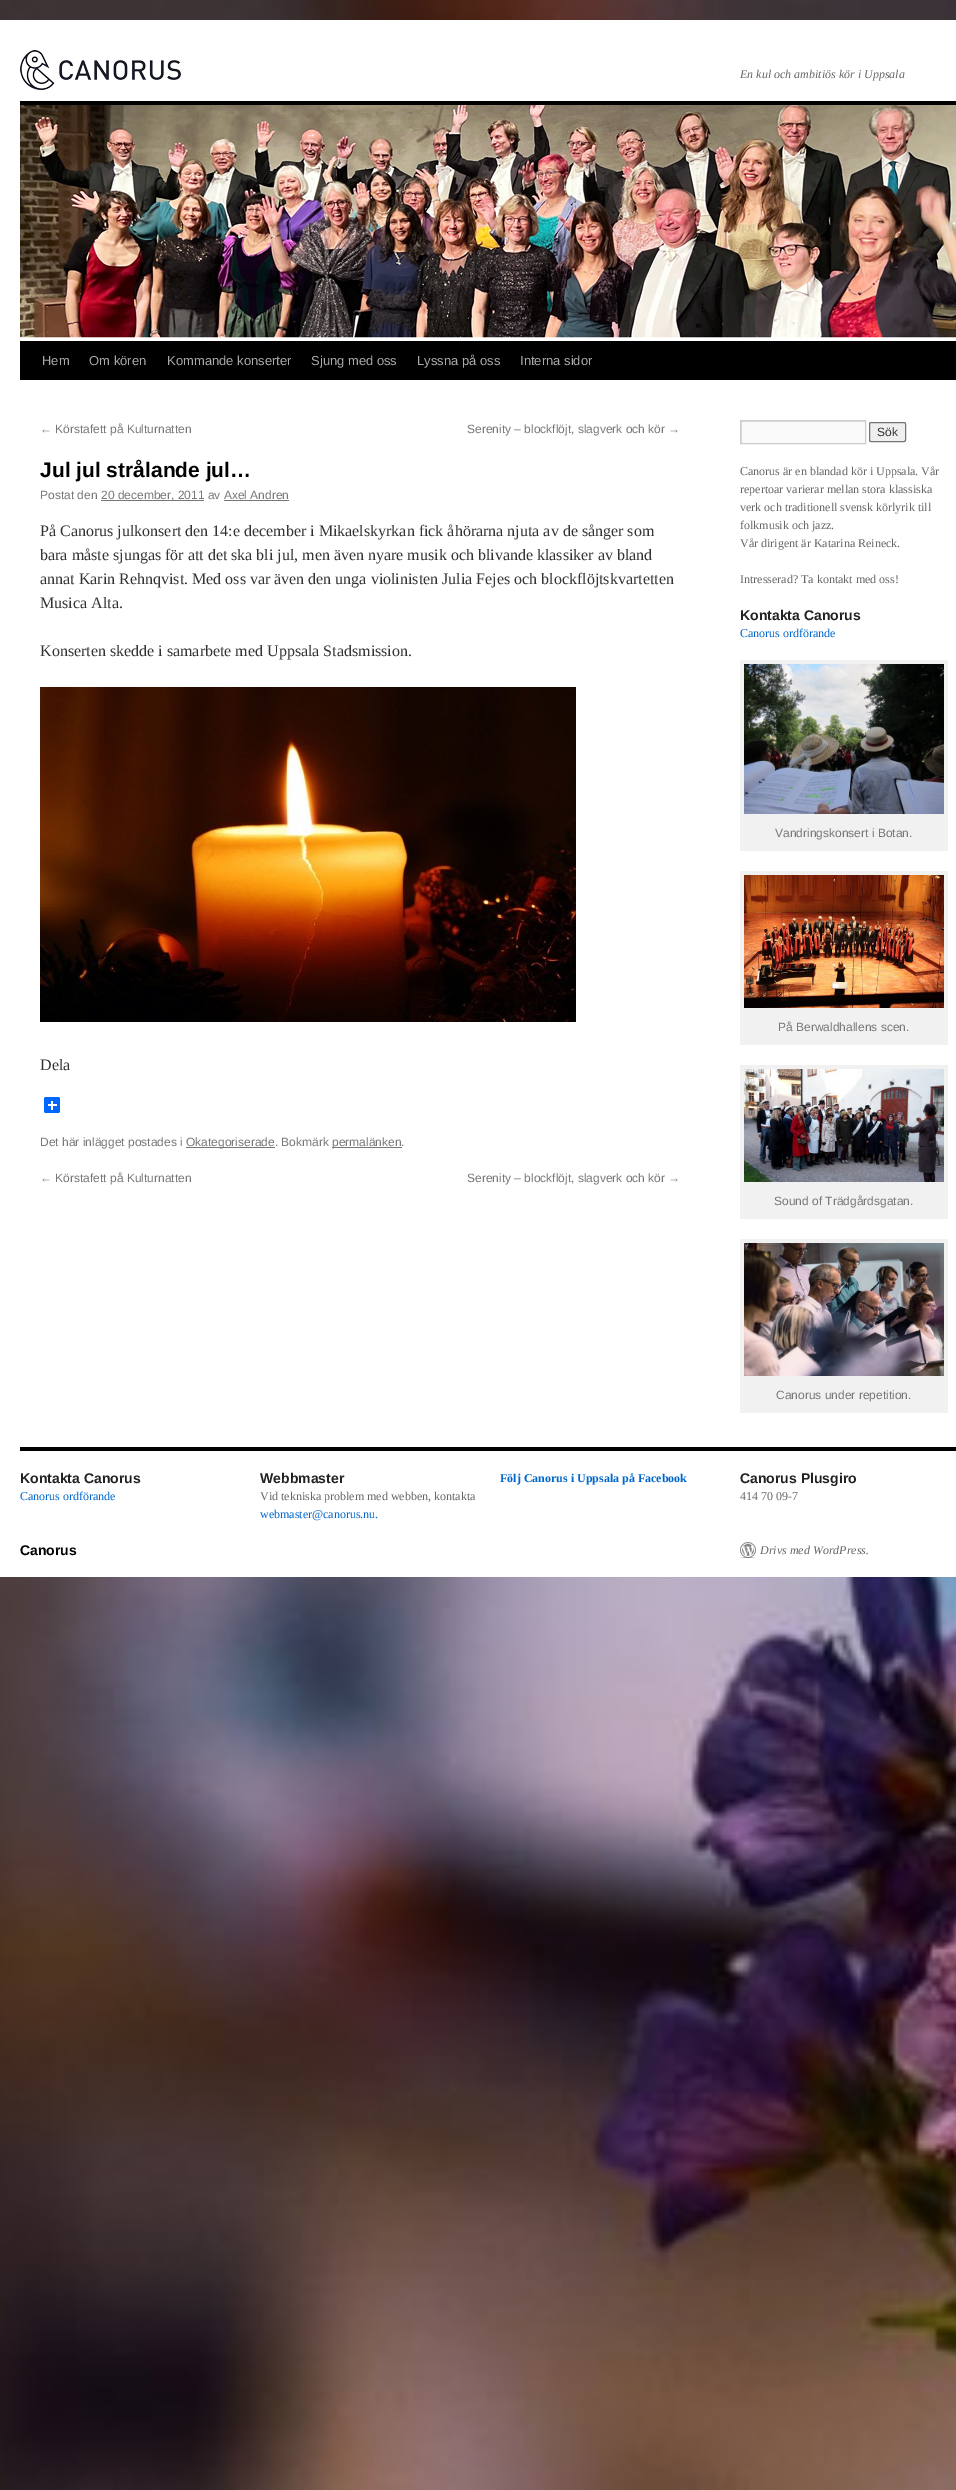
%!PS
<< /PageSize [956 2490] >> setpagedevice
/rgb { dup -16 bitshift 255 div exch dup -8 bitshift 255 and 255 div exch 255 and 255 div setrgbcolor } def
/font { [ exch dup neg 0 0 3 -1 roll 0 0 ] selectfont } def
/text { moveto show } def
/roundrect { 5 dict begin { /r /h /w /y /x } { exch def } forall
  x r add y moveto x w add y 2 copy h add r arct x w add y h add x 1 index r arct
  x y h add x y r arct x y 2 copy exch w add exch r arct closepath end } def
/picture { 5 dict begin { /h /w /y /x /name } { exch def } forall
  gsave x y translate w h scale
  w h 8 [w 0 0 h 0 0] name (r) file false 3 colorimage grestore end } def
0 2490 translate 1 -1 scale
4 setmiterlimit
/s1 { /LiberationSerif-Italic 12 font 16#666666 rgb } def
/s2 { /LiberationSans-Regular 13 font 16#AAAAAA rgb } def
/s3 { /LiberationSans-Regular 12 font 16#777777 rgb } def
/s4 { /LiberationSans-Bold 21 font 16#000000 rgb } def
/s5 { /LiberationSerif-Regular 16 font 16#333333 rgb } def
/s6 { /LiberationSans-Regular 12 font 16#333333 rgb } def
/s7 { /LiberationSerif-Regular 12 font 16#666666 rgb } def
/s8 { /LiberationSans-Bold 14 font 16#222222 rgb } def
/s9 { /LiberationSerif-Regular 12 font 16#0066CC rgb } def
/s10 { /LiberationSerif-Bold 12 font 16#0066CC rgb } def
/s11 { /LiberationSans-Bold 14 font 16#000000 rgb } def
16#FFFFFF rgb
0 0 956 2490 rectfill
(pic1.raw) 0 0 956 2490 picture
0 20 956 1557 rectfill
(pic2.raw) 20 50 161 40 picture
s1
(En kul och ambitiös kör i Uppsala) 740 78 text
16#000000 rgb
20 101 936 4 rectfill
20 341 936 39 rectfill
(pic3.raw) 20 105 936 233 picture
s2
(Hem) 42 365 text
(Om kören) 89 365 text
(Kommande konserter) 167 365 text
(Sjung med oss) 311 365 text
(Lyssna på oss) 417 365 text
(Interna sidor) 520 365 text
s3
(← Körstafett på Kulturnatten) 40 433 text
(Serenity – blockflöjt, slagverk och kör →) 467 433 text
s4
(Jul jul strålande jul…) 40 477 text
s3
(Postat den) 40 499 text
101 500 103 1 rectfill
(20 december, 2011 av Axel Andren) 101 499 text
224 500 65 1 rectfill
s5
(På Canorus julkonsert den 14:e december i Mikaelskyrkan fick åhörarna njuta av de sånger som) 40 536 text
(bara måste sjungas för att det ska bli jul, men även nyare musik och blivande klassiker av bland) 40 560 text
(annat Karin Rehnqvist. Med oss var även den unga violinisten Julia Fejes och blockflöjtskvartetten) 40 584 text
(Musica Alta.) 40 608 text
(Konserten skedde i samarbete med Uppsala Stadsmission.) 40 656 text
(pic4.raw) 40 687 536 335 picture
(Dela) 40 1070 text
16#0166FF rgb
44 1097 16 16 2 roundrect fill
16#FFFFFF rgb
51 1101 2 9 rectfill
48 1104 9 2 rectfill
s3
(Det här inlägget postades i) 40 1146 text
186 1147 89 1 rectfill
(Okategoriserade. Bokmärk) 186 1146 text
332 1147 70 1 rectfill
(permalänken.) 332 1146 text
(← Körstafett på Kulturnatten) 40 1182 text
(Serenity – blockflöjt, slagverk och kör →) 467 1182 text
16#F9F9F9 rgb
742 422 123 21 rectfill
gsave
741 421 124 22 rectclip
16#E0E0E0 rgb
642 322 moveto 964 322 lineto 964 542 lineto 642 542 lineto closepath 742 422 moveto 866 422 lineto 866 444 lineto 742 444 lineto closepath eofill
grestore
16#CCCCCC rgb
740.5 420.5 125 23 rectstroke
16#EFEFEF rgb
869.5 422.5 36 19 1.5 roundrect gsave fill grestore
16#767676 rgb
stroke
s6
(Sök) 877 436 text
s7
(Canorus är en blandad kör i Uppsala. Vår) 740 475 text
(repertoar varierar mellan stora klassiska) 740 493 text
(verk och traditionell svensk körlyrik till) 740 511 text
(folkmusik och jazz.) 740 529 text
(Vår dirigent är Katarina Reineck.) 740 547 text
(Intresserad? Ta kontakt med oss!) 740 583 text
s8
(Kontakta Canorus) 740 620 text
s9
(Canorus ordförande) 740 637 text
16#F1F1F1 rgb
740 660 208 191 rectfill
(pic5.raw) 744 664 200 150 picture
s3
(Vandringskonsert i Botan.) 775 837 text
16#F1F1F1 rgb
740 871 208 174 rectfill
(pic6.raw) 744 875 200 133 picture
s3
(På Berwaldhallens scen.) 778 1031 text
16#F1F1F1 rgb
740 1065 208 154 rectfill
(pic7.raw) 744 1069 200 113 picture
s3
(Sound of Trädgårdsgatan.) 774 1205 text
16#F1F1F1 rgb
740 1239 208 174 rectfill
(pic8.raw) 744 1243 200 133 picture
s3
(Canorus under repetition.) 776 1399 text
16#000000 rgb
20 1447 936 4 rectfill
s8
(Kontakta Canorus) 20 1483 text
s9
(Canorus ordförande) 20 1500 text
s8
(Webbmaster) 260 1483 text
s7
(Vid tekniska problem med webben, kontakta) 260 1500 text
s9
(webmaster@canorus.nu.) 260 1518 text
s10
(Följ Canorus i Uppsala på Facebook) 500 1482 text
s8
(Canorus Plusgiro) 740 1483 text
s7
(414 70 09-7) 740 1500 text
s11
(Canorus) 20 1555 text
(pic9.raw) 740 1542 16 16 picture
s1
(Drivs med WordPress.) 760 1554 text
showpage
